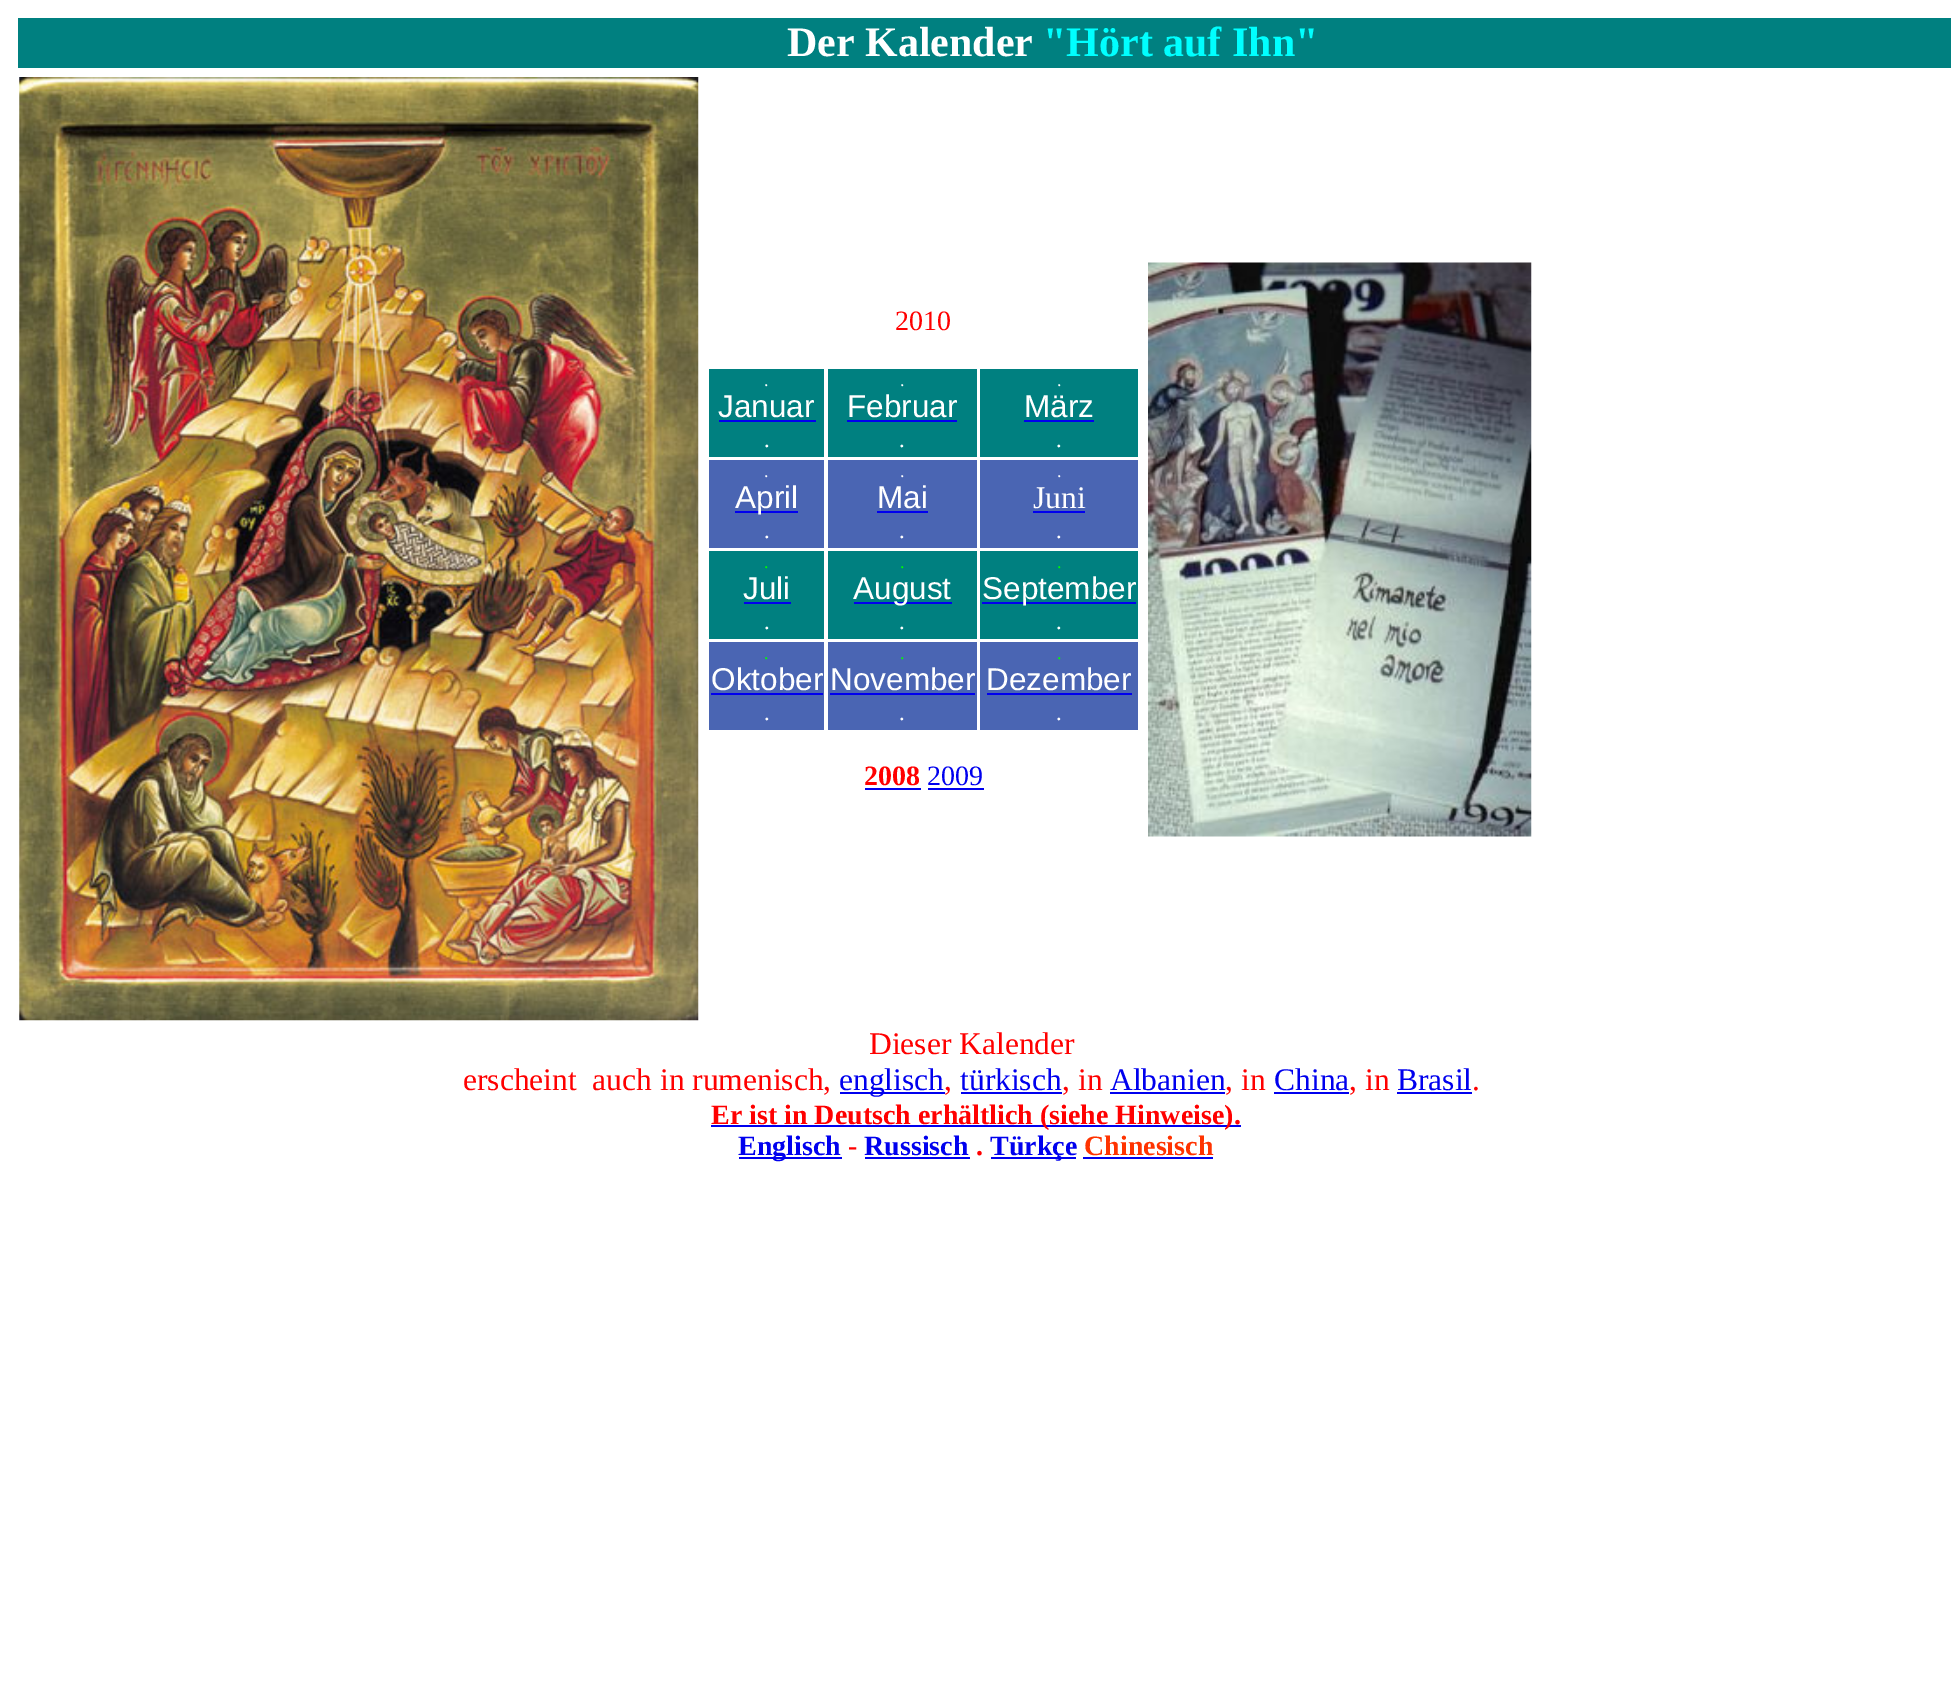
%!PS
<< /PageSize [1951 1683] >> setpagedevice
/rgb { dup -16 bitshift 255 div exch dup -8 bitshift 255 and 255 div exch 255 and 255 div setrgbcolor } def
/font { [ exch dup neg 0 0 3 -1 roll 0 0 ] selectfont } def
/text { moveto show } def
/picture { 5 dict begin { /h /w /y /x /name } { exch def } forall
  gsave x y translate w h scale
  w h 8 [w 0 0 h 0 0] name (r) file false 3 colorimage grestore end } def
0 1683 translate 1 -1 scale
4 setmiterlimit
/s1 { /LiberationSerif-Bold 42 font 16#FFFFFF rgb } def
/s2 { /LiberationSerif-Bold 42 font 16#00FFFF rgb } def
/s3 { /LiberationSerif-Regular 28 font 16#FF0000 rgb } def
/s4 { /LiberationSerif-Regular 18 font 16#FFFFFF rgb } def
/s5 { /LiberationSans-Regular 31.5 font 16#FFFFFF rgb } def
/s6 { /LiberationSerif-Regular 23 font 16#FFFFFF rgb } def
/s7 { /LiberationSerif-Regular 31.5 font 16#FFFFFF rgb } def
/s8 { /LiberationSerif-Regular 18 font 16#00FF00 rgb } def
/s9 { /LiberationSerif-Bold 28 font 16#FF0000 rgb } def
/s10 { /LiberationSerif-Regular 28 font 16#0000EE rgb } def
/s11 { /LiberationSerif-Regular 31.5 font 16#FF0000 rgb } def
/s12 { /LiberationSerif-Regular 31.5 font 16#0000EE rgb } def
/s13 { /LiberationSerif-Bold 28 font 16#0000EE rgb } def
/s14 { /LiberationSerif-Bold 28 font 16#FF3300 rgb } def
16#FFFFFF rgb
0 0 1951 1683 rectfill
16#008080 rgb
18 18 1933 50 rectfill
s1
(Der Kalender) 787 56 text
s2
("Hört auf Ihn") 1043 56 text
(pic1.raw) 19 77 680 944 picture
s3
(2010) 895 330 text
16#008080 rgb
709 369 115 88 rectfill
s4
(.) 764 386 text
s5
(Januar) 718 417 text
16#0000EE rgb
719 420 97 2 rectfill
s6
(.) 764 447 text
16#008080 rgb
828 369 149 88 rectfill
s4
(.) 900 386 text
s5
(Februar) 847 417 text
16#0000EE rgb
847 420 110 2 rectfill
s6
(.) 899 447 text
16#008080 rgb
980 369 158 88 rectfill
s4
(.) 1057 386 text
s5
(März) 1024 417 text
16#0000EE rgb
1024 420 70 2 rectfill
s6
(.) 1056 447 text
16#4A65B3 rgb
709 460 115 88 rectfill
s4
(.) 764 477 text
16#0000EE rgb
735 511 63 2 rectfill
s5
(April) 735 508 text
s6
(.) 764 538 text
16#4A65B3 rgb
828 460 149 88 rectfill
s4
(.) 900 477 text
s5
(Mai) 877 508 text
16#0000EE rgb
877 511 51 2 rectfill
s6
(.) 899 538 text
16#4A65B3 rgb
980 460 158 88 rectfill
s4
(.) 1057 477 text
s7
(Juni) 1033 508 text
16#0000EE rgb
1033 511 52 2 rectfill
s6
(.) 1056 538 text
16#008080 rgb
709 551 115 88 rectfill
s8
(.) 764 568 text
s5
(Juli) 743 599 text
16#0000EE rgb
744 602 47 2 rectfill
s6
(.) 764 629 text
16#008080 rgb
828 551 149 88 rectfill
s8
(.) 900 568 text
16#0000EE rgb
854 602 98 2 rectfill
s5
(August) 853 599 text
s6
(.) 899 629 text
16#008080 rgb
980 551 158 88 rectfill
s8
(.) 1057 568 text
16#0000EE rgb
982 602 154 2 rectfill
s5
(September) 982 599 text
s6
(.) 1056 629 text
16#4A65B3 rgb
709 642 115 88 rectfill
s8
(.) 764 659 text
s5
(Oktober) 711 690 text
16#0000EE rgb
711 693 112 2 rectfill
s6
(.) 764 720 text
16#4A65B3 rgb
828 642 149 88 rectfill
s8
(.) 900 659 text
s5
(November) 830 690 text
16#0000EE rgb
830 693 145 2 rectfill
s6
(.) 899 720 text
16#4A65B3 rgb
980 642 158 88 rectfill
s8
(.) 1057 659 text
s5
(Dezember) 986 690 text
16#0000EE rgb
987 693 145 2 rectfill
s6
(.) 1056 720 text
s9
(2008) 864 785 text
16#0000EE rgb
865 788 56 2 rectfill
s10
(2009) 927 785 text
928 788 56 2 rectfill
(pic2.raw) 1148 262 384 575 picture
s11
(Dieser Kalender) 869 1054 text
(erscheint  auch in rumenisch,) 463 1090 text
16#0000EE rgb
840 1092 105 2 rectfill
(englisch) 839 1090 text
s11
(,) 944 1090 text
16#0000EE rgb
961 1092 101 2 rectfill
(türkisch) 960 1090 text
s11
(, in) 1062 1090 text
s12
(Albanien) 1110 1090 text
s11
(, in) 1225 1090 text
16#0000EE rgb
1110 1092 115 2 rectfill
(China) 1274 1090 text
s11
(, in) 1349 1090 text
16#0000EE rgb
1274 1092 75 2 rectfill
(Brasil) 1397 1090 text
s11
(.) 1472 1090 text
16#0000EE rgb
1397 1092 75 2 rectfill
711 1125 530 2 rectfill
s9
(Er ist in Deutsch erhältlich \(siehe Hinweise\).) 711 1124 text
16#0000EE rgb
739 1157 103 2 rectfill
(Englisch) 738 1155 text
s9
(-) 848 1155 text
s13
(Russisch) 864 1155 text
991 1157 85 2 rectfill
(Türkçe) 990 1155 text
s14
(Chinesisch) 1084 1155 text
16#0000EE rgb
1083 1157 130 2 rectfill
s9
(.) 976 1155 text
16#0000EE rgb
865 1157 105 2 rectfill
showpage
